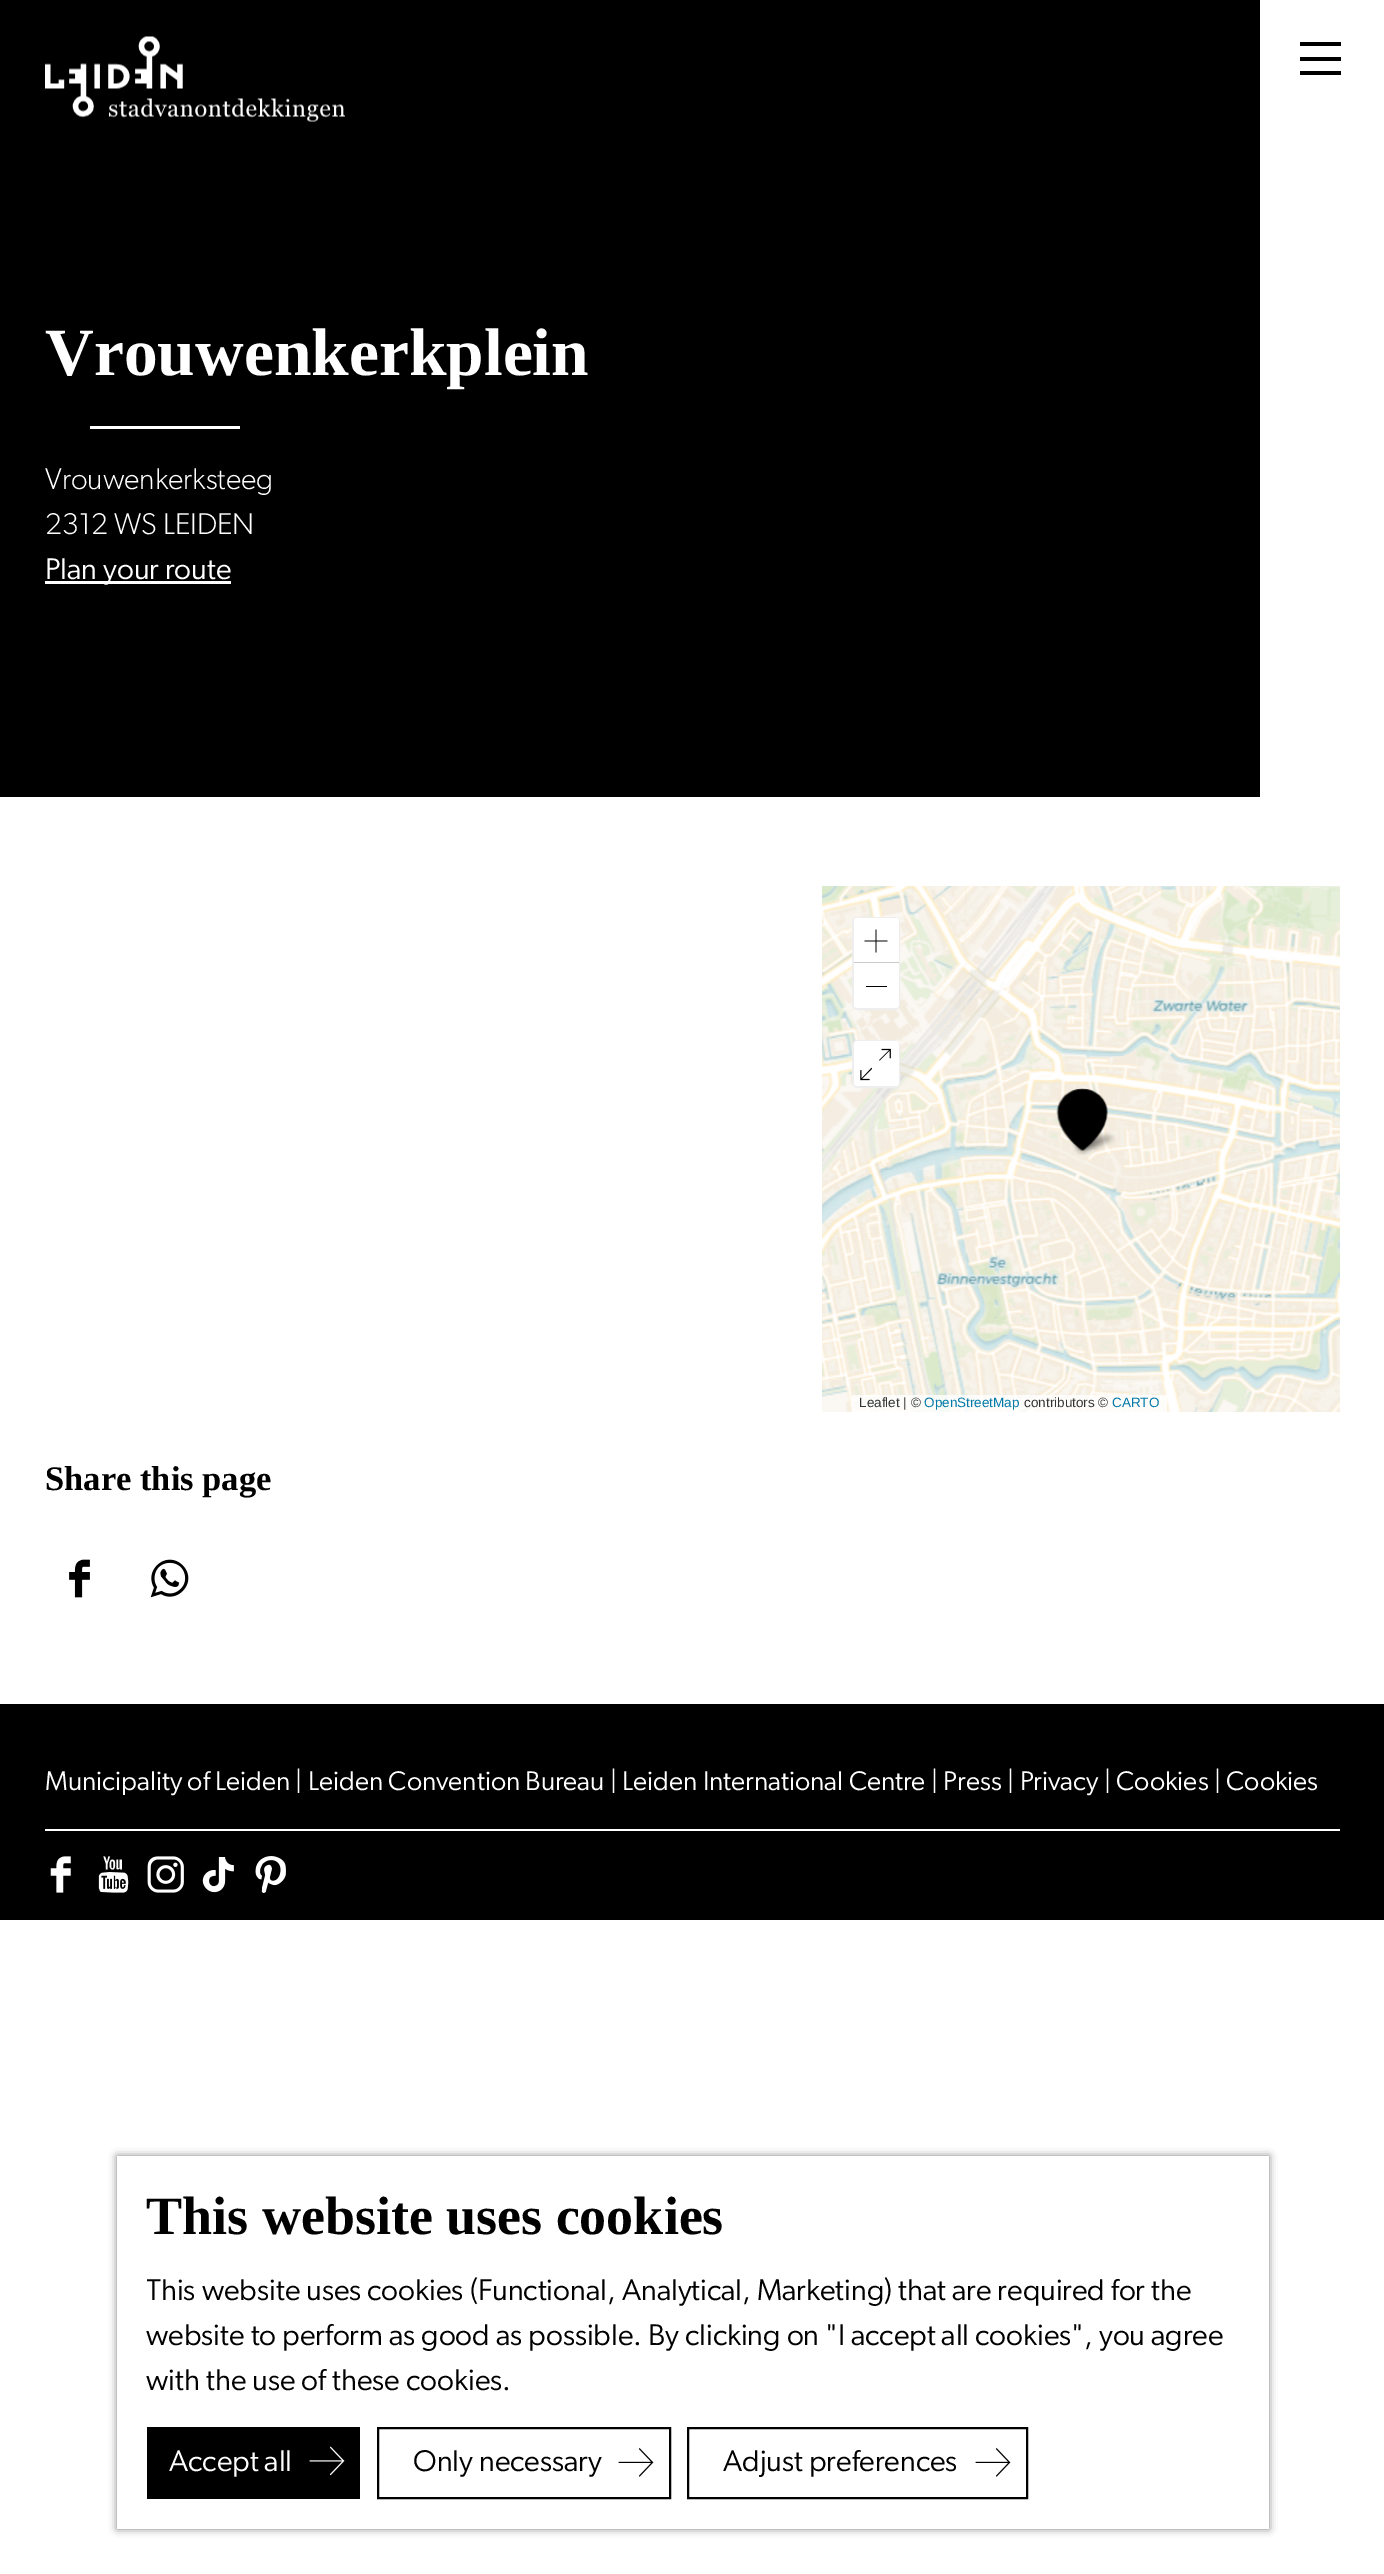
%!PS
<< /PageSize [1384 2574] /PageUsesTransparency true >> setpagedevice
/rgb { dup -16 bitshift 255 div exch dup -8 bitshift 255 and 255 div exch 255 and 255 div setrgbcolor } def
/font { [ exch dup neg 0 0 3 -1 roll 0 0 ] selectfont } def
/text { moveto show } def
/alpha { dup .setfillconstantalpha .setstrokeconstantalpha } def
/roundrect { 5 dict begin { /r /h /w /y /x } { exch def } forall
  x r add y moveto x w add y 2 copy h add r arct x w add y h add x 1 index r arct
  x y h add x y r arct x y 2 copy exch w add exch r arct closepath end } def
/shadow { 12 dict begin { /a /b /q /h /w /y /x } { exch def } forall gsave /was 0 def
  9 -2 -9 { dup b mul 4 div /e exch def 1 sub .425 mul 2.718 exch exp 1 add a .99 .min exch div /now exch def
    1 1 now sub 1 was sub div sub alpha /was now def
    w h .min e 2 mul add 0 gt { x e sub y e sub w e 2 mul add h e 2 mul add
      q e add b .6 mul add w h .min 2 div e add .min 0 .max roundrect fill } if } for grestore end } def
/picture { 5 dict begin { /h /w /y /x /name } { exch def } forall
  gsave x y translate w h scale
  w h 8 [w 0 0 h 0 0] name (r) file false 3 colorimage grestore end } def
0 .pushpdf14devicefilter
0 2574 translate 1 -1 scale
4 setmiterlimit
/s1 { /LiberationSerif-Bold 67.5 font 16#FFFFFF rgb } def
/s2 { /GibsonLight-Light 30 font 16#FFFFFF rgb } def
/s3 { /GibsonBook-Regular 30 font 16#FFFFFF rgb } def
/s4 { /LiberationSans-Regular 13.5 font 16#333333 rgb } def
/s5 { /LiberationSans-Regular 13.5 font 16#0078A8 rgb } def
/s6 { /LiberationSerif-Bold 34.5 font 16#000000 rgb } def
/s7 { /GibsonBook-Regular 27 font 16#FFFFFF rgb } def
/s8 { /LiberationSerif-Bold 54 font 16#000000 rgb } def
/s9 { /GibsonBook-Regular 30 font 16#000000 rgb } def
16#FFFFFF rgb
0 0 1384 2574 rectfill
16#000000 rgb
0 0 1260 797 rectfill
(pic1.raw) 45 36 300 86 picture
1300 42 moveto 1341 42 lineto 1341 46 lineto 1300 46 lineto closepath 1300 57 moveto 1341 57 lineto 1341 61 lineto 1300 61 lineto closepath 1300 71 moveto 1341 71 lineto 1341 75 lineto 1300 75 lineto closepath fill
s1
(Vrouwenkerkplein) 45 375 text
90 426 150 3 rectfill
s2
(Vrouwenkerksteeg) 45 489 text
(2312 WS LEIDEN) 45 534 text
45 581 186 3 rectfill
s3
(Plan your route) 45 579 text
(pic2.raw) 965 886 2 526 picture
(pic3.raw) 822 886 145 284 picture
(pic4.raw) 965 886 375 284 picture
(pic5.raw) 822 1170 145 242 picture
(pic6.raw) 965 1170 375 242 picture
(pic8.raw) 1072 1132 44 23 picture
(pic7.raw) 1056 1088 52 63 picture
16#EEEEEF rgb
2 setlinewidth
853 918 46 91 5 roundrect stroke
16#FFFFFF rgb
857 918 moveto 896 918 lineto 897.5 918 899 919.5 899 921 curveto 899 963 lineto 854 963 lineto 854 921 lineto 854 919.5 855.5 918 857 918 curveto closepath fill
16#CCCCCC rgb
854 962 45 1 rectfill
(pic9.raw) 864 929 24 24 picture
16#FFFFFF rgb
854 963 moveto 899 963 lineto 899 1005 lineto 899 1006.5 897.5 1008 896 1008 curveto 857 1008 lineto 855.5 1008 854 1006.5 854 1005 curveto closepath fill
16#000000 rgb
866 986 21 1 rectfill
16#EEEEEF rgb
853 1041 46 46 5 roundrect stroke
16#FFFFFF rgb
854 1041 45 45 3 roundrect fill
(pic10.raw) 860 1048 31 33 picture
0.8 alpha
852 1395 315 17 rectfill
1 alpha
s4
(Leaflet | ©) 859 1407 text
s5
(OpenStreetMap) 924 1407 text
s4
(contributors ©) 1024 1407 text
s5
(CARTO) 1112 1407 text
s6
(Share this page) 45 1490 text
(pic11.raw) 69 1559 21 39 picture
(pic12.raw) 150 1559 39 39 picture
0 1704 1384 216 rectfill
16#FFFFFF rgb
45 1829 1295 2 rectfill
s7
(Municipality of Leiden | Leiden Convention Bureau | Leiden International Centre | Press | Privacy | Cookies | Cookies) 45 1790 text
(pic13.raw) 50 1856 21 37 picture
(pic14.raw) 98 1856 31 37 picture
(pic15.raw) 147 1856 37 37 picture
(pic16.raw) 202 1857 32 36 picture
(pic17.raw) 255 1856 31 37 picture
gsave
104 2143 moveto 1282 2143 lineto 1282 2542 lineto 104 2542 lineto closepath 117 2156 moveto 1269 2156 lineto 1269 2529 lineto 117 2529 lineto closepath eoclip newpath
16#000000 rgb
117 2156 1152 373 0 4 0.5 shadow
grestore
s8
(This website uses cookies) 146 2234 text
gsave
147 2186 1092 241 rectclip
s9
(This website uses cookies \(Functional, Analytical, Marketing\) that are required for the) 146 2300 text
grestore
s9
(website to perform as good as possible. By clicking on "I accept all cookies", you agree) 146 2345 text
(with the use of these cookies.) 146 2390 text
147 2427 213 72 rectfill
s3
(Accept all) 169 2471 text
(pic18.raw) 309 2446 36 30 picture
16#000000 rgb
378 2428 292 70 rectstroke
(Only necessary) 413 2471 text
(pic19.raw) 618 2448 36 29 picture
688 2428 339 70 rectstroke
(Adjust preferences) 723 2471 text
(pic19.raw) 975 2448 36 29 picture
.poppdf14devicefilter showpage
